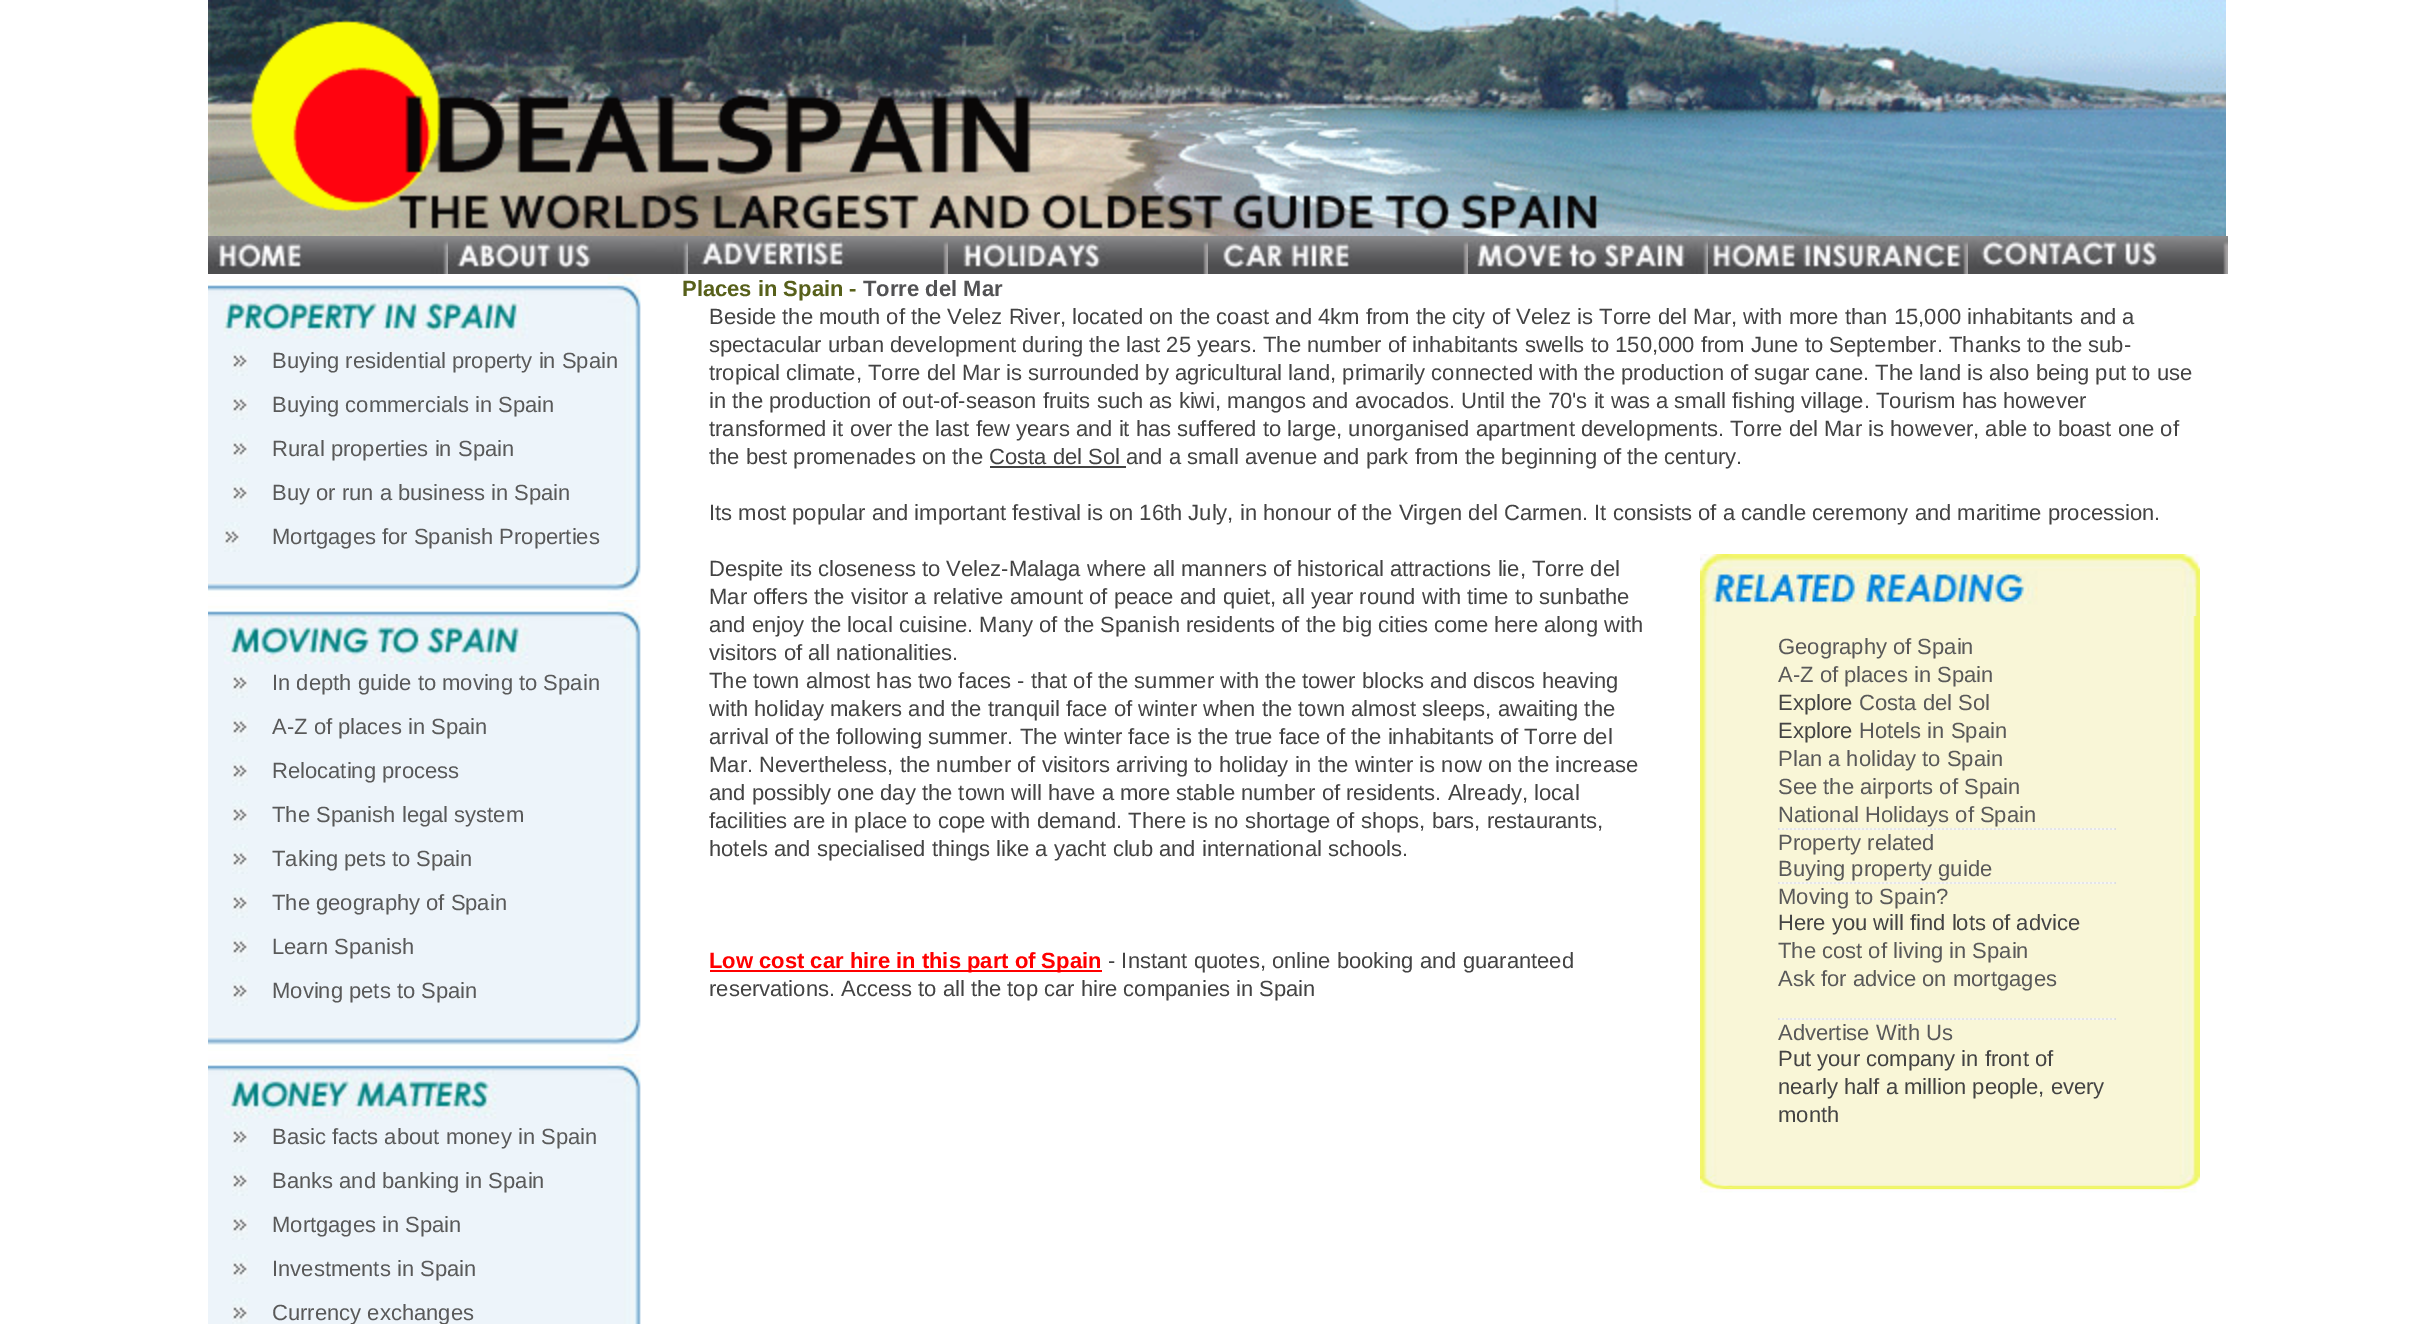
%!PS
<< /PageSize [2435 1324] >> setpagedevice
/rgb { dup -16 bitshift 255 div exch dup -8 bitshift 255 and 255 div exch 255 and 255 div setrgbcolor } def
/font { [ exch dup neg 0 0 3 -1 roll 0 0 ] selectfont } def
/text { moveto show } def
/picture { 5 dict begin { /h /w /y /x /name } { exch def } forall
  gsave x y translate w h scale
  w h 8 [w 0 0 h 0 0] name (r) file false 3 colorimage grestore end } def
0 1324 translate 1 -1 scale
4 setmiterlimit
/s1 { /LiberationSans-Regular 22 font 16#595959 rgb } def
/s2 { /LiberationSans-Bold 22 font 16#57601A rgb } def
/s3 { /LiberationSans-Bold 22 font 16#525254 rgb } def
/s4 { /LiberationSans-Regular 22 font 16#434343 rgb } def
/s5 { /LiberationSans-Bold 22 font 16#FF0000 rgb } def
16#FFFFFF rgb
0 0 2435 1324 rectfill
(pic1.raw) 208 0 2018 236 picture
(pic2.raw) 208 236 240 38 picture
(pic3.raw) 448 236 240 38 picture
(pic4.raw) 688 236 260 38 picture
(pic5.raw) 948 236 260 38 picture
(pic6.raw) 1208 236 260 38 picture
(pic7.raw) 1468 236 240 38 picture
(pic8.raw) 1708 236 260 38 picture
(pic9.raw) 1968 236 260 38 picture
(pic10.raw) 208 274 433 72 picture
(pic11.raw) 208 346 433 220 picture
(pic12.raw) 232 346 16 30 picture
s1
(Buying residential property in Spain) 272 368 text
(pic12.raw) 232 390 16 30 picture
(Buying commercials in Spain) 272 412 text
(pic12.raw) 232 434 16 30 picture
(Rural properties in Spain) 272 456 text
(pic12.raw) 232 478 16 30 picture
(Buy or run a business in Spain) 272 500 text
(pic12.raw) 224 522 16 30 picture
(Mortgages for Spanish Properties) 272 544 text
(pic13.raw) 208 566 433 31 picture
(pic14.raw) 208 600 433 68 picture
(pic15.raw) 208 668 433 352 picture
(pic12.raw) 232 668 16 30 picture
(In depth guide to moving to Spain) 272 690 text
(pic12.raw) 232 712 16 30 picture
(A-Z of places in Spain) 272 734 text
(pic12.raw) 232 756 16 30 picture
(Relocating process) 272 778 text
(pic12.raw) 232 800 16 30 picture
(The Spanish legal system) 272 822 text
(pic12.raw) 232 844 16 30 picture
(Taking pets to Spain) 272 866 text
(pic12.raw) 232 888 16 30 picture
(The geography of Spain) 272 910 text
(pic12.raw) 232 932 16 30 picture
(Learn Spanish) 272 954 text
(pic12.raw) 232 976 16 30 picture
(Moving pets to Spain) 272 998 text
(pic13.raw) 208 1020 433 31 picture
(pic16.raw) 208 1054 433 68 picture
(pic17.raw) 208 1122 433 202 picture
(pic12.raw) 232 1122 16 30 picture
(Basic facts about money in Spain) 272 1144 text
(pic12.raw) 232 1166 16 30 picture
(Banks and banking in Spain) 272 1188 text
(pic12.raw) 232 1210 16 30 picture
(Mortgages in Spain) 272 1232 text
(pic12.raw) 232 1254 16 30 picture
(Investments in Spain) 272 1276 text
(pic18.raw) 232 1298 16 26 picture
(Currency exchanges) 272 1320 text
s2
(Places in Spain -) 682 296 text
s3
(Torre del Mar) 863 296 text
s4
(Beside the mouth of the Velez River, located on the coast and 4km from the city of Velez is Torre del Mar, with more than 15,000 inhabitants and a) 709 324 text
(spectacular urban development during the last 25 years. The number of inhabitants swells to 150,000 from June to September. Thanks to the sub-) 709 352 text
(tropical climate, Torre del Mar is surrounded by agricultural land, primarily connected with the production of sugar cane. The land is also being put to use) 709 380 text
(in the production of out-of-season fruits such as kiwi, mangos and avocados. Until the 70's it was a small fishing village. Tourism has however) 709 408 text
(transformed it over the last few years and it has suffered to large, unorganised apartment developments. Torre del Mar is however, able to boast one of) 709 436 text
(the best promenades on the Costa del Sol and a small avenue and park from the beginning of the century.) 709 464 text
990 466 136 2 rectfill
(Its most popular and important festival is on 16th July, in honour of the Virgen del Carmen. It consists of a candle ceremony and maritime procession.) 709 520 text
(Despite its closeness to Velez-Malaga where all manners of historical attractions lie, Torre del) 709 576 text
(Mar offers the visitor a relative amount of peace and quiet, all year round with time to sunbathe) 709 604 text
(and enjoy the local cuisine. Many of the Spanish residents of the big cities come here along with) 709 632 text
(visitors of all nationalities.) 709 660 text
(The town almost has two faces - that of the summer with the tower blocks and discos heaving) 709 688 text
(with holiday makers and the tranquil face of winter when the town almost sleeps, awaiting the) 709 716 text
(arrival of the following summer. The winter face is the true face of the inhabitants of Torre del) 709 744 text
(Mar. Nevertheless, the number of visitors arriving to holiday in the winter is now on the increase) 709 772 text
(and possibly one day the town will have a more stable number of residents. Already, local) 709 800 text
(facilities are in place to cope with demand. There is no shortage of shops, bars, restaurants,) 709 828 text
(hotels and specialised things like a yacht club and international schools.) 709 856 text
16#FF0000 rgb
710 970 392 2 rectfill
s5
(Low cost car hire in this part of Spain) 709 968 text
s4
(- Instant quotes, online booking and guaranteed) 1108 968 text
(reservations. Access to all the top car hire companies in Spain) 709 996 text
(pic19.raw) 1700 554 500 62 picture
(pic20.raw) 1700 616 500 550 picture
s1
(Geography of Spain) 1778 654 text
(A-Z of places in Spain) 1778 682 text
s4
(Explore) 1778 710 text
s1
(Costa del Sol) 1859 710 text
s4
(Explore) 1778 738 text
s1
(Hotels in Spain) 1859 738 text
(Plan a holiday to Spain) 1778 766 text
(See the airports of Spain) 1778 794 text
(National Holidays of Spain) 1778 822 text
(pic21.raw) 1778 828 338 2 picture
(Property related) 1778 850 text
(Buying property guide) 1778 876 text
(pic21.raw) 1778 882 338 2 picture
(Moving to Spain?) 1778 904 text
s4
(Here you will find lots of advice) 1778 930 text
s1
(The cost of living in Spain) 1778 958 text
(Ask for advice on mortgages) 1778 986 text
(pic21.raw) 1778 1018 338 2 picture
(Advertise With Us) 1778 1040 text
s4
(Put your company in front of) 1778 1066 text
(nearly half a million people, every) 1778 1094 text
(month) 1778 1122 text
(pic22.raw) 1700 1166 500 27 picture
showpage
